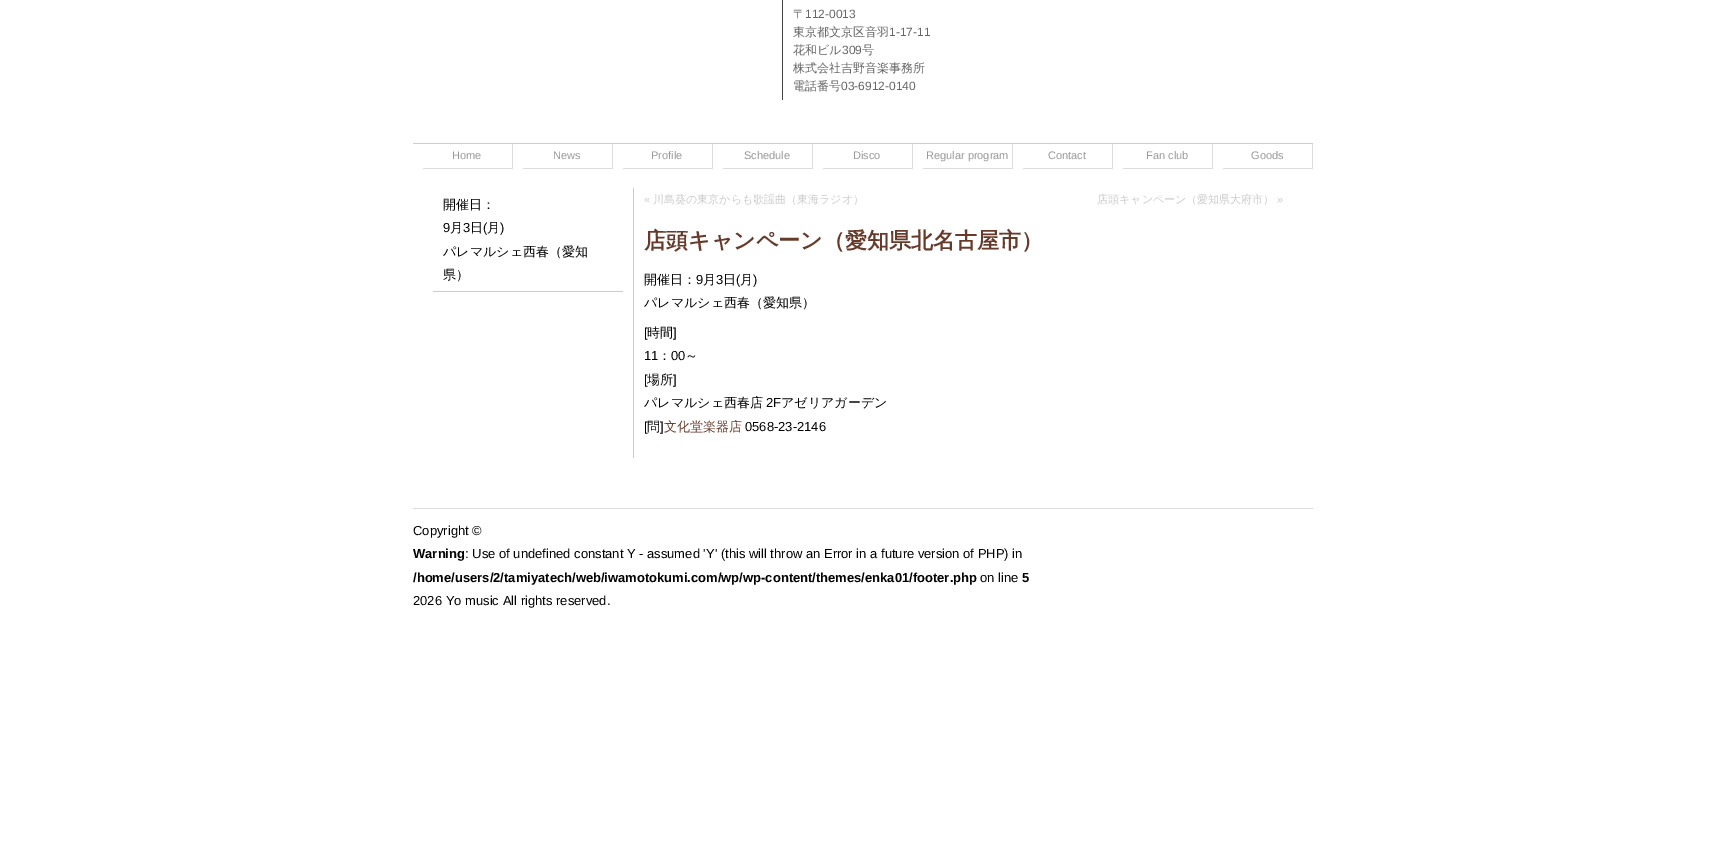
%!PS
<< /PageSize [1725 867] >> setpagedevice
/rgb { dup -16 bitshift 255 div exch dup -8 bitshift 255 and 255 div exch 255 and 255 div setrgbcolor } def
/font { [ exch dup neg 0 0 3 -1 roll 0 0 ] selectfont } def
/text { moveto show } def
0 867 translate 1 -1 scale
4 setmiterlimit
/s1 { /WenQuanYiZenHei-Medium 12 font 16#666666 rgb } def
/s2 { /LiberationSans-Regular 12 font 16#666666 rgb } def
/s3 { /LiberationSans-Regular 11 font 16#999999 rgb } def
/s4 { /WenQuanYiZenHei-Medium 13 font 16#000000 rgb } def
/s5 { /LiberationSans-Regular 13 font 16#000000 rgb } def
/s6 { /LiberationSans-Regular 11 font 16#CCCCCC rgb } def
/s7 { /WenQuanYiZenHei-Medium 11 font 16#CCCCCC rgb } def
/s8 { /WenQuanYiZenHei-Bold 22 font 16#673B2C rgb } def
/s9 { /WenQuanYiZenHei-Medium 13 font 16#673B2C rgb } def
/s10 { /LiberationSans-Bold 13 font 16#000000 rgb } def
16#FFFFFF rgb
0 0 1725 867 rectfill
16#444444 rgb
782 0 1 100 rectfill
s1
(〒) 793 18 text
s2
(112-0013) 805 18 text
s1
(東京都文京区音羽) 793 36 text
s2
(1-17-11) 889 36 text
s1
(花和ビル) 793 54 text
s2
(309) 842 54 text
s1
(号) 862 54 text
(株式会社吉野音楽事務所) 793 72 text
(電話番号) 793 90 text
s2
(03-6912-0140) 841 90 text
16#CCCCCC rgb
413 143 900 1 rectfill
16#DDDDDD rgb
512 144 1 25 rectfill
423 168 90 1 rectfill
s3
(Home) 452 159 text
16#DDDDDD rgb
612 144 1 25 rectfill
523 168 90 1 rectfill
s3
(News) 553 159 text
16#DDDDDD rgb
712 144 1 25 rectfill
623 168 90 1 rectfill
s3
(Profile) 651 159 text
16#DDDDDD rgb
812 144 1 25 rectfill
723 168 90 1 rectfill
s3
(Schedule) 744 159 text
16#DDDDDD rgb
912 144 1 25 rectfill
823 168 90 1 rectfill
s3
(Disco) 853 159 text
16#DDDDDD rgb
1012 144 1 25 rectfill
923 168 90 1 rectfill
s3
(Regular program) 926 159 text
16#DDDDDD rgb
1112 144 1 25 rectfill
1023 168 90 1 rectfill
s3
(Contact) 1048 159 text
16#DDDDDD rgb
1212 144 1 25 rectfill
1123 168 90 1 rectfill
s3
(Fan club) 1146 159 text
16#DDDDDD rgb
1312 144 1 25 rectfill
1223 168 90 1 rectfill
s3
(Goods) 1251 159 text
16#CCCCCC rgb
433 291 190 1 rectfill
s4
(開催日：) 443 209 text
s5
(9) 443 232 text
s4
(月) 450 232 text
s5
(3) 463 232 text
s4
(日) 470 232 text
s5
(\() 483 232 text
s4
(月) 487 232 text
s5
(\)) 500 232 text
s4
(パレマルシェ西春（愛知) 443 256 text
(県）) 443 279 text
16#CCCCCC rgb
633 188 1 270 rectfill
s6
(«) 644 203 text
s7
(川島葵の東京からも歌謡曲（東海ラジオ）) 653 203 text
(店頭キャンペーン（愛知県大府市）) 1097 203 text
s6
(») 1277 203 text
s8
(店頭キャンペーン（愛知県北名古屋市）) 644 248 text
s4
(開催日：) 644 284 text
s5
(9) 696 284 text
s4
(月) 703 284 text
s5
(3) 716 284 text
s4
(日) 723 284 text
s5
(\() 736 284 text
s4
(月) 740 284 text
s5
(\)) 753 284 text
s4
(パレマルシェ西春（愛知県）) 644 307 text
s5
([) 644 337 text
s4
(時間) 647 337 text
s5
(]) 673 337 text
(11) 644 360 text
s4
(：) 658 360 text
s5
(00) 671 360 text
s4
(～) 685 360 text
s5
([) 644 384 text
s4
(場所) 647 384 text
s5
(]) 673 384 text
s4
(パレマルシェ西春店) 644 407 text
s5
(2F) 766 407 text
s4
(アゼリアガーデン) 781 407 text
s5
([) 644 431 text
s4
(問) 647 431 text
s5
(]) 660 431 text
s9
(文化堂楽器店) 664 431 text
s5
(0568-23-2146) 745 431 text
16#DDDDDD rgb
413 508 900 1 rectfill
s5
(Copyright ©) 413 535 text
s10
(Warning) 413 558 text
s5
(: Use of undefined constant Y - assumed 'Y' \(this will throw an Error in a future version of PHP\) in) 465 558 text
s10
(/home/users/2/tamiyatech/web/iwamotokumi.com/wp/wp-content/themes/enka01/footer.php) 413 582 text
s5
(on line) 980 582 text
s10
(5) 1022 582 text
s5
(2026 Yo music All rights reserved.) 413 605 text
showpage
